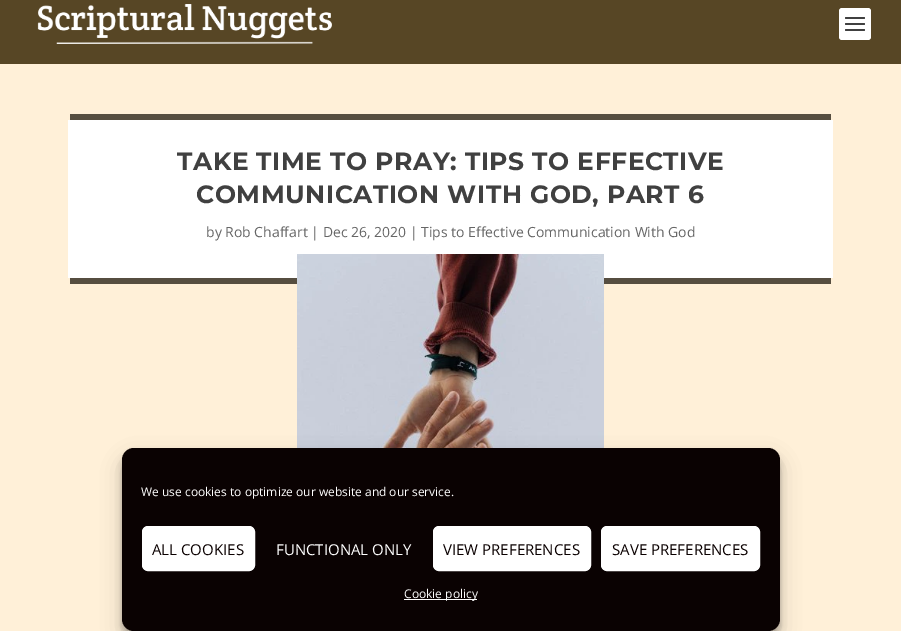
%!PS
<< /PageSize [901 631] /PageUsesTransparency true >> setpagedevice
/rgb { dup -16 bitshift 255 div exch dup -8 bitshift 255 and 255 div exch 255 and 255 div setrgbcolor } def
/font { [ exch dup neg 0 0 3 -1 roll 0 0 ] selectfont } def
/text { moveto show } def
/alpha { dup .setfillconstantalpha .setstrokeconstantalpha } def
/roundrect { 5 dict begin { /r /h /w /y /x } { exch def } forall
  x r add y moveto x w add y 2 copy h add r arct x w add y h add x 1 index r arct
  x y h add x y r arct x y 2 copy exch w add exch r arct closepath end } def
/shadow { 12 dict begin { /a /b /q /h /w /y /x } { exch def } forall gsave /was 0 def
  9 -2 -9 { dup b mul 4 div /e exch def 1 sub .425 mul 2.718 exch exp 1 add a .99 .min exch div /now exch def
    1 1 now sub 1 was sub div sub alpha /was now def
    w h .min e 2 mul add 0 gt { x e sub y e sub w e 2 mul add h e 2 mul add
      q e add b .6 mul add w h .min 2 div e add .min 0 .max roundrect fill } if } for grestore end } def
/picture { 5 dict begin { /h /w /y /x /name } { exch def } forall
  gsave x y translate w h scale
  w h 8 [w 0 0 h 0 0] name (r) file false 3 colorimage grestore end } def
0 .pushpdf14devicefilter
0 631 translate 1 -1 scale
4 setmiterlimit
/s1 { /OpenSans-Regular 14 font 16#666666 rgb } def
/s2 { /OpenSans-Regular 12 font 16#FFFFFF rgb } def
/s3 { /OpenSans-Regular 15 font 16#0A0000 rgb } def
/s4 { /OpenSans-Regular 15 font 16#FFFFFF rgb } def
16#FFF0D8 rgb
0 0 901 631 rectfill
16#574625 rgb
0 0 901 64 rectfill
(pic1.raw) 37 4 295 40 picture
16#FFFFFF rgb
839 8 32 32 3 roundrect fill
16#404040 rgb
845 17 20 2 1 roundrect fill
845 23 20 2 1 roundrect fill
845 29 20 2 1 roundrect fill
16#FFFFFF rgb
72 120 moveto 833 120 lineto 833 278 lineto 68 278 lineto 68 120 lineto closepath fill
16#564E40 rgb
70 114 761 6 rectfill
70 278 761 6 rectfill
/Montserrat-Bold 25 font
16#404040 rgb
177 170 moveto 0.5 0 (TAKE TIME TO PRAY: TIPS TO EFFECTIVE) ashow
196 203 moveto 0.5 0 (COMMUNICATION WITH GOD, PART 6) ashow
s1
(by Rob Chaffart | Dec 26, 2020 | Tips to Effective Communication With God) 206 237 text
(pic2.raw) 297 254 307 194 picture
16#000000 rgb
122 454 658 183 12 3 0.23 shadow
122 458 658 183 12 10 0.19 shadow
16#0A0202 rgb
122 448 658 183 12 roundrect fill
s2
(We use cookies to optimize our website and our service.) 141 496 text
142.5 526.5 112 44 5.5 roundrect gsave fill grestore
stroke
s3
(ALL COOKIES) 152 555 text
s4
(FUNCTIONAL ONLY) 276 555 text
433.5 526.5 157 44 5.5 roundrect gsave fill grestore
stroke
s3
(VIEW PREFERENCES) 443 555 text
16#FFFFFF rgb
601.5 526.5 158 44 5.5 roundrect gsave fill grestore
stroke
s3
(SAVE PREFERENCES) 612 555 text
16#FFFFFF rgb
404 599 73 1 rectfill
s2
(Cookie policy) 404 598 text
.poppdf14devicefilter showpage
